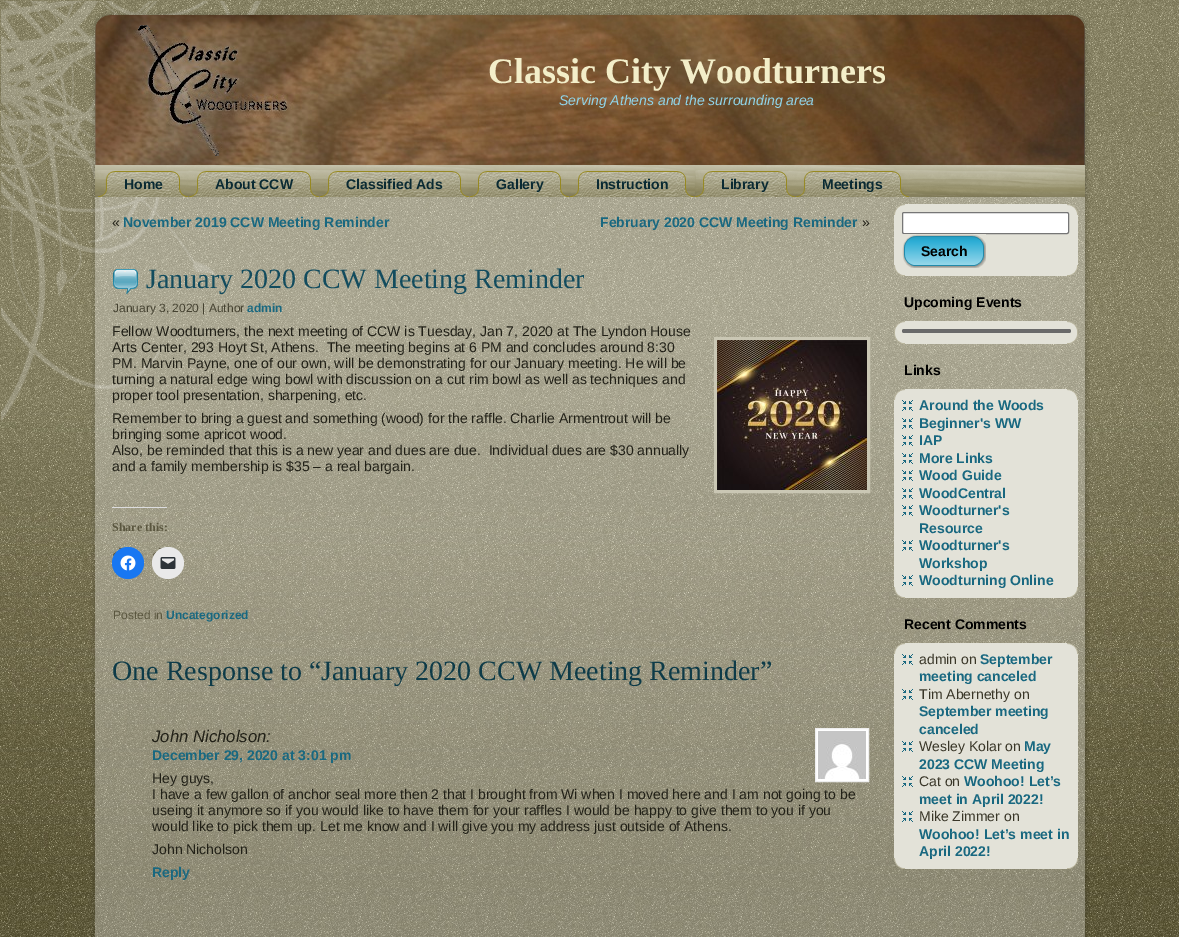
%!PS
<< /PageSize [1179 937] /PageUsesTransparency true >> setpagedevice
/rgb { dup -16 bitshift 255 div exch dup -8 bitshift 255 and 255 div exch 255 and 255 div setrgbcolor } def
/font { [ exch dup neg 0 0 3 -1 roll 0 0 ] selectfont } def
/text { moveto show } def
/alpha { dup .setfillconstantalpha .setstrokeconstantalpha } def
/circle { newpath 0 360 arc closepath } def
/roundrect { 5 dict begin { /r /h /w /y /x } { exch def } forall
  x r add y moveto x w add y 2 copy h add r arct x w add y h add x 1 index r arct
  x y h add x y r arct x y 2 copy exch w add exch r arct closepath end } def
/picture { 5 dict begin { /h /w /y /x /name } { exch def } forall
  gsave x y translate w h scale
  w h 8 [w 0 0 h 0 0] name (r) file false 3 colorimage grestore end } def
0 .pushpdf14devicefilter
0 937 translate 1 -1 scale
4 setmiterlimit
/s1 { /LiberationSerif-Bold 36 font 16#F3EEC9 rgb } def
/s2 { /LiberationSans-Italic 14 font 16#90D4E9 rgb } def
/s3 { /LiberationSans-Bold 14 font 16#0A2A33 rgb } def
/s4 { /LiberationSans-Regular 14 font 16#212017 rgb } def
/s5 { /LiberationSans-Bold 14 font 16#196880 rgb } def
/s6 { /LiberationSerif-Regular 28 font 16#134C5E rgb } def
/s7 { /LiberationSans-Regular 12 font 16#454231 rgb } def
/s8 { /LiberationSans-Bold 12 font 16#196880 rgb } def
/s9 { /LiberationSerif-Bold 12 font 16#5A563F rgb } def
/s10 { /LiberationSans-Regular 12 font 16#5A563F rgb } def
/s11 { /LiberationSerif-Regular 28 font 16#0E3B48 rgb } def
/s12 { /LiberationSans-Italic 16.75 font 16#212017 rgb } def
/s13 { /LiberationSans-Bold 14 font 16#000000 rgb } def
/s14 { /LiberationSans-Regular 14 font 16#393628 rgb } def
16#FFFFFF rgb
0 0 1179 937 rectfill
(pic1.raw) 0 900 1179 37 picture
(pic2.raw) 0 0 1179 900 picture
(pic3.raw) 1 1 260 421 picture
(pic4.raw) 91 11 34 34 picture
(pic5.raw) 125 11 930 4 picture
(pic6.raw) 1055 11 35 34 picture
(pic7.raw) 91 45 34 892 picture
(pic53.raw) 1055 45 35 892 picture
(pic8.raw) 95 15 990 150 picture
(pic9.raw) 110 30 958 120 picture
s1
(Classic City Woodturners) 488 83 text
s2
(Serving Athens and the surrounding area) 559 105 text
(pic10.raw) 95 165 990 32 picture
(pic11.raw) 98 171 73 26 picture
(pic12.raw) 171 171 17 26 picture
s3
(Home) 124 189 text
(pic13.raw) 189 171 113 26 picture
(pic14.raw) 302 171 17 26 picture
(About CCW) 215 189 text
(pic15.raw) 320 171 132 26 picture
(pic16.raw) 452 171 17 26 picture
(Classified Ads) 346 189 text
(pic17.raw) 470 171 82 26 picture
(pic18.raw) 552 171 17 26 picture
(Gallery) 496 189 text
(pic19.raw) 570 171 107 26 picture
(pic20.raw) 677 171 17 26 picture
(Instruction) 596 189 text
(pic21.raw) 695 171 83 26 picture
(pic22.raw) 778 171 17 26 picture
(Library) 721 189 text
(pic23.raw) 796 171 96 26 picture
(pic24.raw) 892 171 17 26 picture
(Meetings) 822 189 text
s4
(«) 112 227 text
0.3 alpha
16#FFFFFF rgb
125 197 930 740 rectfill
1 alpha
s5
(November 2019 CCW Meeting Reminder) 123 227 text
(February 2020 CCW Meeting Reminder) 600 227 text
s4
(») 862 227 text
(pic25.raw) 113 269 25 26 picture
s6
(January 2020 CCW Meeting Reminder) 146 288 text
s7
(January 3, 2020 | Author) 113 312 text
s8
(admin) 247 312 text
s4
(Fellow Woodturners, the next meeting of CCW is Tuesday, Jan 7, 2020 at The Lyndon House) 112 336 text
(Arts Center, 293 Hoyt St, Athens.  The meeting begins at 6 PM and concludes around 8:30) 112 352 text
16#CAC7B4 rgb
3 setlinewidth
715.5 338.5 153 153 rectstroke
(pic26.raw) 717 340 150 150 picture
s4
(PM. Marvin Payne, one of our own, will be demonstrating for our January meeting. He will be) 112 368 text
(turning a natural edge wing bowl with discussion on a cut rim bowl as well as techniques and) 112 384 text
(proper tool presentation, sharpening, etc.) 112 400 text
(Remember to bring a guest and something \(wood\) for the raffle. Charlie Armentrout will be) 112 423 text
(bringing some apricot wood.) 112 439 text
(Also, be reminded that this is a new year and dues are due.  Individual dues are $30 annually) 112 455 text
(and a family membership is $35 – a real bargain.) 112 471 text
16#DCDCDE rgb
112 507 55 1 rectfill
s9
(Share this:) 112 531 text
(pic27.raw) 113 547 10 9 picture
16#1877F2 rgb
128 563 16 circle fill
(pic28.raw) 120 555 16 16 picture
(pic29.raw) 153 547 10 9 picture
16#E9E9E9 rgb
168 563 16 circle fill
(pic30.raw) 160 557 16 12 picture
s10
(Posted in) 113 619 text
s8
(Uncategorized) 166 619 text
s11
(One Response to “January 2020 CCW Meeting Reminder”) 112 680 text
s12
(John Nicholson:) 152 742 text
16#FFFFFF rgb
815.5 728.5 moveto 868.5 728.5 lineto 868.5 781.5 lineto 815.5 781.5 lineto closepath gsave fill grestore
16#EEEEEE rgb
1 setlinewidth
stroke
(pic31.raw) 818 731 48 48 picture
s5
(December 29, 2020 at 3:01 pm) 152 760 text
s4
(Hey guys,) 152 783 text
(I have a few gallon of anchor seal more then 2 that I brought from Wi when I moved here and I am not going to be) 152 799 text
(useing it anymore so if you would like to have them for your raffles I would be happy to give them to you if you) 152 815 text
(would like to pick them up. Let me know and I will give you my address just outside of Athens.) 152 831 text
(John Nicholson) 152 854 text
s5
(Reply) 152 877 text
(pic32.raw) 894 204 11 11 picture
16#E3E2D8 rgb
905 204 162 8 rectfill
(pic33.raw) 1067 204 11 11 picture
894 215 11 50 rectfill
905 234 162 42 rectfill
1067 215 11 50 rectfill
16#FFFFFF rgb
902.5 212.5 166 21 1.5 roundrect gsave fill grestore
16#767676 rgb
stroke
(pic36.raw) 894 265 11 11 picture
(pic34.raw) 902 234 68 34 picture
(pic35.raw) 970 234 16 34 picture
s13
(Search) 921 256 text
(pic37.raw) 1067 265 11 11 picture
(Upcoming Events) 904 307 text
(pic38.raw) 894 321 11 11 picture
16#E3E2D8 rgb
905 321 162 8 rectfill
(pic39.raw) 1067 321 11 11 picture
(pic40.raw) 894 332 10 1 picture
(pic41.raw) 1069 332 9 1 picture
16#6A6A6A rgb
902 329 169 4 2 roundrect fill
(pic42.raw) 894 333 11 11 picture
16#E3E2D8 rgb
905 333 162 11 rectfill
(pic43.raw) 1067 333 11 11 picture
s13
(Links) 904 375 text
(pic44.raw) 894 389 11 11 picture
16#E3E2D8 rgb
905 389 162 11 rectfill
(pic45.raw) 1067 389 11 11 picture
894 400 11 187 rectfill
905 400 173 187 rectfill
(pic46.raw) 902 400 11 11 picture
s5
(Around the Woods) 919 410 text
(pic46.raw) 902 418 11 11 picture
(Beginner's WW) 919 428 text
(pic46.raw) 902 435 11 11 picture
(IAP) 919 445 text
(pic46.raw) 902 453 11 11 picture
(More Links) 919 463 text
(pic46.raw) 902 470 11 11 picture
(Wood Guide) 919 480 text
(pic46.raw) 902 488 11 11 picture
(WoodCentral) 919 498 text
(pic46.raw) 902 505 11 11 picture
(Woodturner's) 919 515 text
(Resource) 919 533 text
(pic46.raw) 902 540 11 11 picture
(Woodturner's) 919 550 text
(Workshop) 919 568 text
(pic46.raw) 902 575 11 11 picture
16#E3E2D8 rgb
905 587 162 11 rectfill
s5
(Woodturning Online) 919 585 text
(pic47.raw) 894 587 11 11 picture
(pic48.raw) 1067 587 11 11 picture
s13
(Recent Comments) 904 629 text
(pic49.raw) 894 643 11 11 picture
16#E3E2D8 rgb
905 643 162 11 rectfill
(pic50.raw) 1067 643 11 11 picture
894 654 11 204 rectfill
905 654 173 204 rectfill
(pic46.raw) 902 654 11 11 picture
s14
(admin on) 919 664 text
s5
(September) 980 664 text
(meeting canceled) 919 681 text
(pic46.raw) 902 689 11 11 picture
s14
(Tim Abernethy on) 919 699 text
s5
(September meeting) 919 716 text
(canceled) 919 734 text
(pic46.raw) 902 741 11 11 picture
s14
(Wesley Kolar on) 919 751 text
s5
(May) 1024 751 text
(2023 CCW Meeting) 919 769 text
(pic46.raw) 902 776 11 11 picture
s14
(Cat on) 919 786 text
s5
(Woohoo! Let’s) 964 786 text
(meet in April 2022!) 919 804 text
(pic46.raw) 902 811 11 11 picture
s14
(Mike Zimmer on) 919 821 text
s5
(Woohoo! Let’s meet in) 919 839 text
16#E3E2D8 rgb
905 858 162 11 rectfill
s5
(April 2022!) 919 856 text
(pic51.raw) 894 858 11 11 picture
(pic52.raw) 1067 858 11 11 picture
.poppdf14devicefilter showpage
